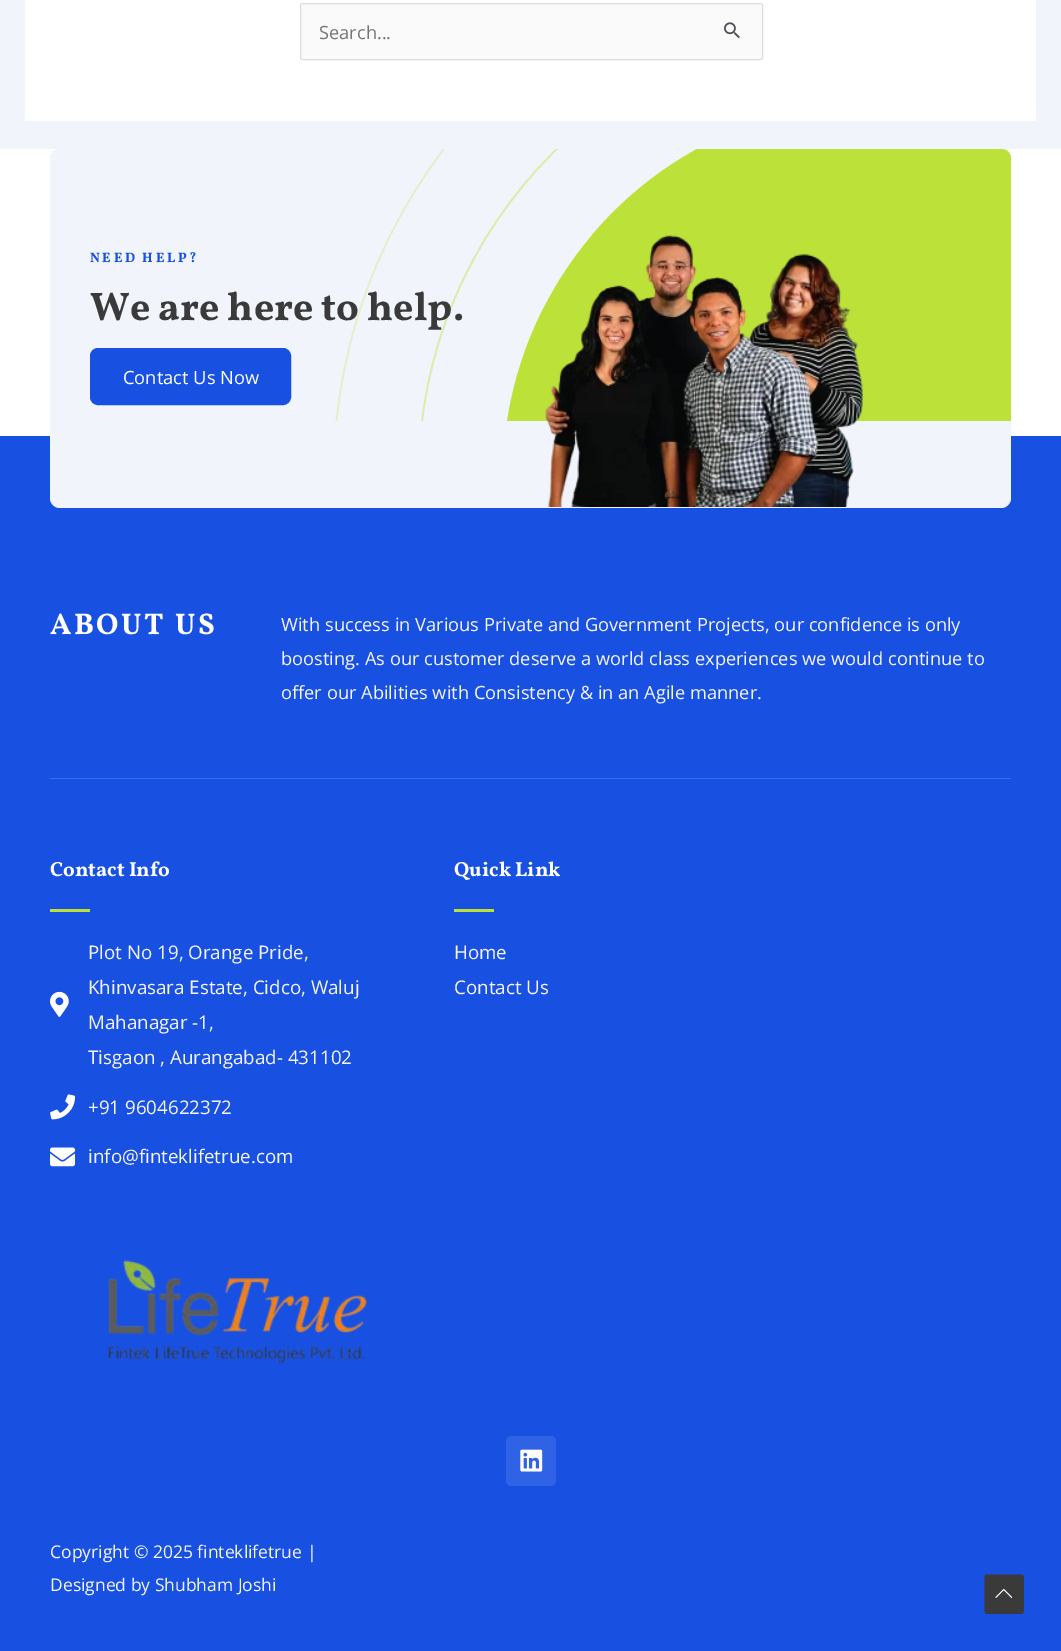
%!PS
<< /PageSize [1061 1651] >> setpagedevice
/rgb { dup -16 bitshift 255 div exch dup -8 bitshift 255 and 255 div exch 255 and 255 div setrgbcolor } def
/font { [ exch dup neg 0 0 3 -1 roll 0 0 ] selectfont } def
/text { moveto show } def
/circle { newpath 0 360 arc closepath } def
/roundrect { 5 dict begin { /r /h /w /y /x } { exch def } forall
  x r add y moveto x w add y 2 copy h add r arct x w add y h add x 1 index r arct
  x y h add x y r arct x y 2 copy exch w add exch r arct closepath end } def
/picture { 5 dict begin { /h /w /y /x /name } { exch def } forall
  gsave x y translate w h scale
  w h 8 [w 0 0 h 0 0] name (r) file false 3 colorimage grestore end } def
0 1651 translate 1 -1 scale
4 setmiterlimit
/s1 { /OpenSans-Regular 18.25 font 16#757575 rgb } def
/s2 { /Vollkorn-Bold 40 font 16#3A3A3A rgb } def
/s3 { /OpenSans-Regular 18.25 font 16#FFFFFF rgb } def
/s4 { /OpenSans-Regular 18.25 font 16#F6F6F6 rgb } def
/s5 { /Vollkorn-Bold 20.5 font 16#FFFFFF rgb } def
/s6 { /OpenSans-Regular 18.75 font 16#F6F6F6 rgb } def
/s7 { /OpenSans-Regular 17.5 font 16#F6F6F6 rgb } def
16#F1F4FA rgb
0 0 1061 1651 rectfill
16#FFFFFF rgb
25 0 1011 121 rectfill
16#FAFAFA rgb
300.5 3.5 462 56 2 roundrect gsave fill grestore
16#DDDDDD rgb
stroke
s1
(Search...) 319 39 text
(pic1.raw) 724 22 16 17 picture
16#FFFFFF rgb
0 149 1061 287 rectfill
16#1850E1 rgb
0 436 1061 1215 rectfill
16#F1F4FA rgb
50 149 961 359 10 roundrect fill
gsave
333 149 678 272 rectclip
16#DCECAC rgb
1.7 setlinewidth
878 477.5 459.5 circle stroke
16#E4EFCB rgb
878 477.5 544.5 circle stroke
16#BCE138 rgb
697 149 moveto 1001 149 lineto 1007 149 1011 153 1011 159 curveto 1011 498 lineto 1011 504 1007 508 1001 508 curveto 504 508 lineto 492 361 568 220 697 149 curveto closepath fill
grestore
/Vollkorn-Bold 13.75 font
16#1850E1 rgb
90 262 moveto 2.5 0 (NEED HELP?) ashow
s2
(We are here to help.) 90 320 text
16#1850E1 rgb
91.5 349.5 198 54 6.5 roundrect gsave fill grestore
3 setlinewidth
stroke
s3
(Contact Us Now) 123 384 text
(pic2.raw) 545 235 318 272 picture
16#3D6CE6 rgb
50 778 961 1 rectfill
/Vollkorn-Bold 30 font
16#FFFFFF rgb
50 634 moveto 2.5 0 (ABOUT US) ashow
s4
(With success in Various Private and Government Projects, our confidence is only) 281 631 text
(boosting. As our customer deserve a world class experiences we would continue to) 281 665 text
(offer our Abilities with Consistency & in an Agile manner.) 281 699 text
s5
(Contact Info) 50 876 text
16#BCE138 rgb
50 909 40 3 rectfill
(pic3.raw) 50 991 19 26 picture
s6
(Plot No 19, Orange Pride,) 88 959 text
(Khinvasara Estate, Cidco, Waluj) 88 994 text
(Mahanagar -1,) 88 1029 text
(Tisgaon , Aurangabad- 431102) 88 1064 text
(pic4.raw) 50 1094 25 26 picture
(+91 9604622372) 88 1114 text
(pic5.raw) 50 1147 25 20 picture
(info@finteklifetrue.com) 88 1163 text
s5
(Quick Link) 454 876 text
16#BCE138 rgb
454 909 40 3 rectfill
s6
(Home) 454 959 text
(Contact Us) 454 994 text
(pic6.raw) 107 1260 261 104 picture
16#2F62E4 rgb
506 1436 50 50 5 roundrect fill
(pic7.raw) 520 1449 23 23 picture
s7
(Copyright © 2025 finteklifetrue |) 50 1558 text
(Designed by Shubham Joshi) 50 1591 text
16#3A3A3A rgb
1021 1614 moveto 987 1614 lineto 985.5 1614 984.5 1612.5 984.5 1611 curveto 984.5 1577 lineto 984.5 1575.5 985.5 1574.5 987 1574.5 curveto 1021 1574.5 lineto 1022.5 1574.5 1024 1575.5 1024 1577 curveto 1024 1611 lineto 1024 1612.5 1022.5 1614 1021 1614 curveto closepath fill
(pic8.raw) 995 1588 18 10 picture
showpage
